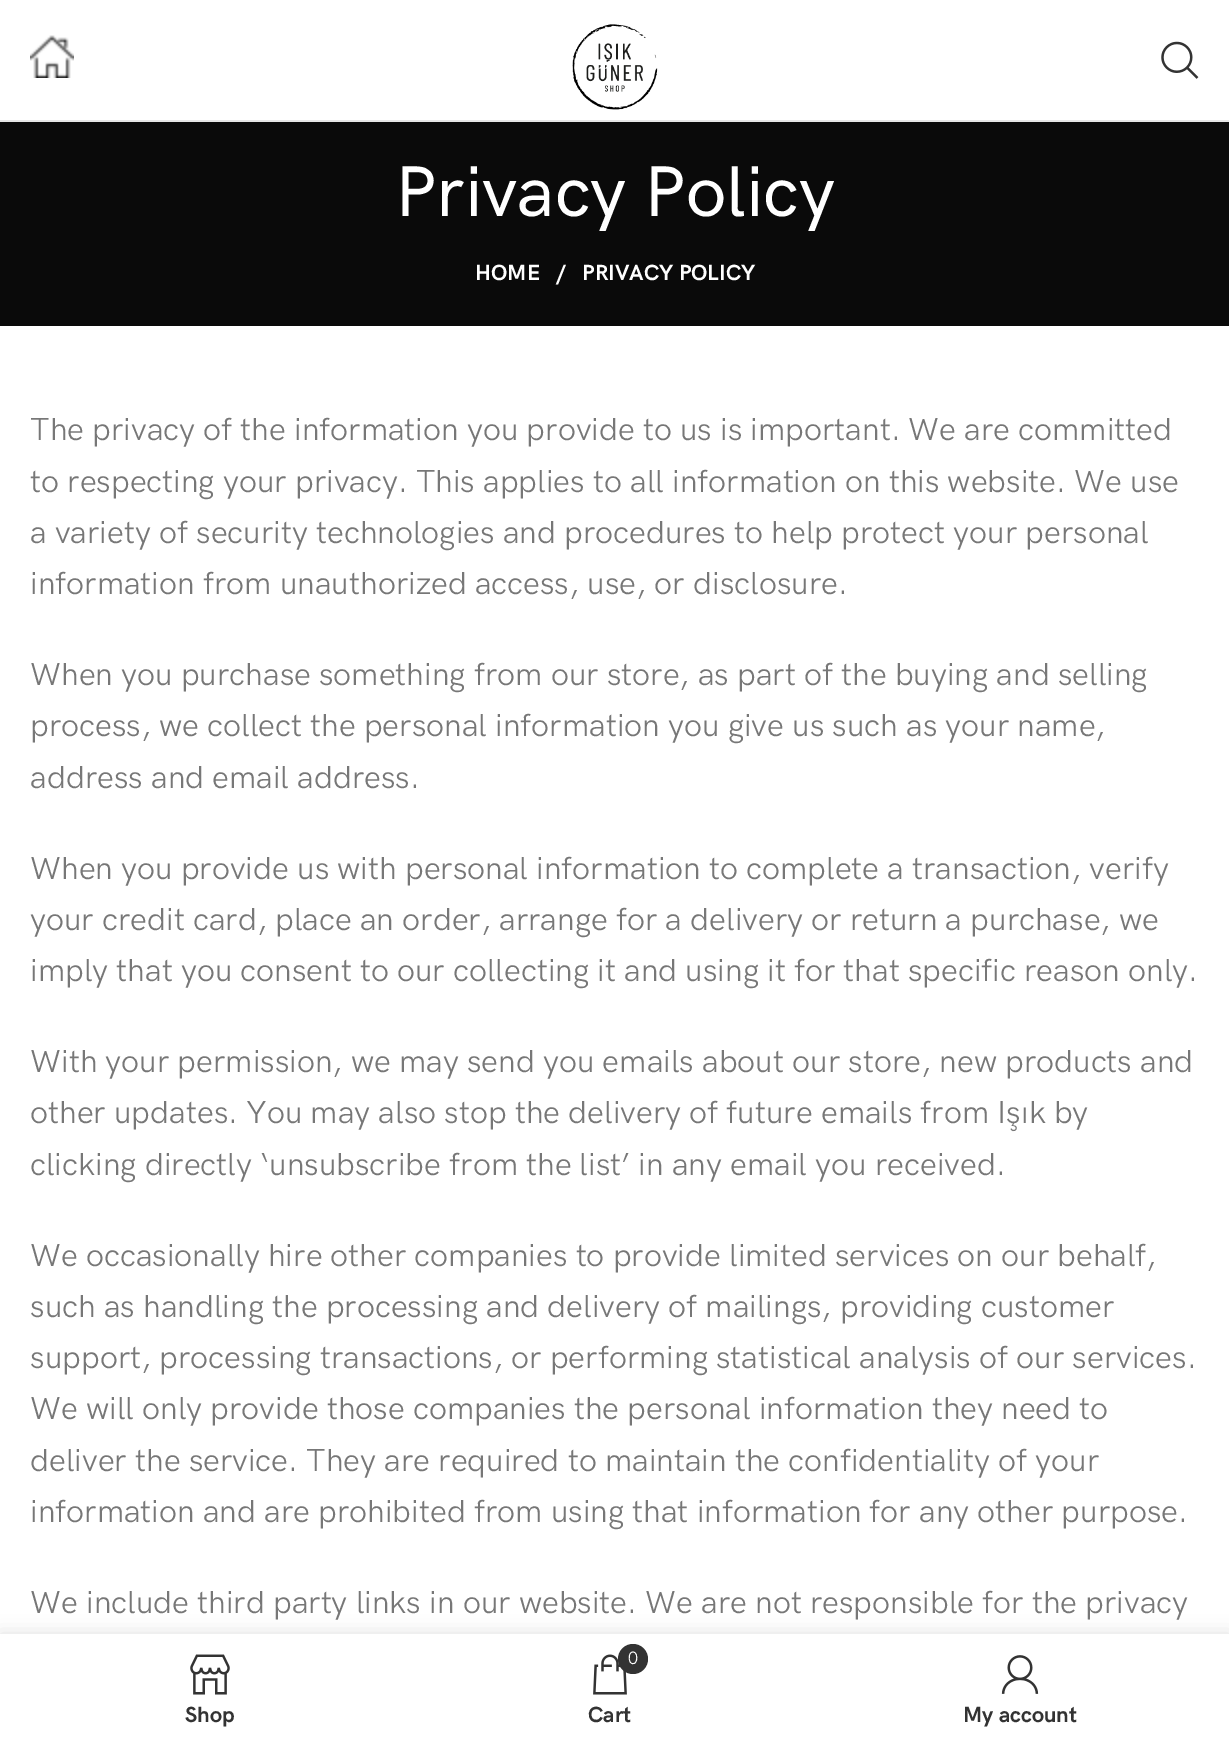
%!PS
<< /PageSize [1229 1744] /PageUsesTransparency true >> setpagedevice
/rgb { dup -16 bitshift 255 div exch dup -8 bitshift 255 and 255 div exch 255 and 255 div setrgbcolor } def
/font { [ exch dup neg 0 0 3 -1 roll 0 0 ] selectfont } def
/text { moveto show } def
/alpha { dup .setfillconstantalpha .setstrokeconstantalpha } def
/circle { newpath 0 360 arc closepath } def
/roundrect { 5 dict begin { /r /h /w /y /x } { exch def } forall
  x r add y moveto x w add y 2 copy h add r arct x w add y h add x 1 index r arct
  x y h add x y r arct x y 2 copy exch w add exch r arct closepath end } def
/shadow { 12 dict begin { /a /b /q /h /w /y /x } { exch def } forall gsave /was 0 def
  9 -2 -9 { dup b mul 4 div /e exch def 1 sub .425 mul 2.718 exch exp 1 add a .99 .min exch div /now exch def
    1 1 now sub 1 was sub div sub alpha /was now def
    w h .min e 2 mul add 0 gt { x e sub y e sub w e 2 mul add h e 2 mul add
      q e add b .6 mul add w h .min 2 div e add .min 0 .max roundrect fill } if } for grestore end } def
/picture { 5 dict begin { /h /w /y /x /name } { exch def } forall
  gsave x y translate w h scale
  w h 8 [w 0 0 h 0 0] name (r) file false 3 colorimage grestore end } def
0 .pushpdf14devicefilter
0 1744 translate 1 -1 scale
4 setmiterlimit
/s1 { /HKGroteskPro-Medium 72 font 16#FFFFFF rgb } def
/s2 { /HKGroteskPro-Bold 22 font 16#FFFFFF rgb } def
/s3 { /HKGroteskPro-Regular 32 font 16#777777 rgb } def
/s4 { /HKGroteskPro-Bold 22 font 16#333333 rgb } def
/s5 { /HKGroteskPro-Regular 18 font 16#FFFFFF rgb } def
16#FFFFFF rgb
0 0 1229 1744 rectfill
16#E6E6E6 rgb
0 120 1229 2 rectfill
(pic1.raw) 30 35 44 43 picture
(pic2.raw) 572 24 86 86 picture
(pic3.raw) 1161 41 38 38 picture
16#0A0A0A rgb
0 122 1229 204 rectfill
s1
(Privacy Policy) 395 216 text
s2
(HOME) 475 280 text
(/) 556 280 text
(PRIVACY POLICY) 582 280 text
s3
(The privacy of the information you provide to us is important. We are committed) 30 440 text
(to respecting your privacy. This applies to all information on this website. We use) 30 492 text
(a variety of security technologies and procedures to help protect your personal) 30 543 text
(information from unauthorized access, use, or disclosure.) 30 594 text
(When you purchase something from our store, as part of the buying and selling) 30 685 text
(process, we collect the personal information you give us such as your name,) 30 736 text
(address and email address.) 30 788 text
(When you provide us with personal information to complete a transaction, verify) 30 879 text
(your credit card, place an order, arrange for a delivery or return a purchase, we) 30 930 text
(imply that you consent to our collecting it and using it for that specific reason only.) 30 981 text
(With your permission, we may send you emails about our store, new products and) 30 1072 text
(other updates. You may also stop the delivery of future emails from Işık by) 30 1123 text
(clicking directly ‘unsubscribe from the list’ in any email you received.) 30 1175 text
(We occasionally hire other companies to provide limited services on our behalf,) 30 1266 text
(such as handling the processing and delivery of mailings, providing customer) 30 1317 text
(support, processing transactions, or performing statistical analysis of our services.) 30 1368 text
(We will only provide those companies the personal information they need to) 30 1419 text
(deliver the service. They are required to maintain the confidentiality of your) 30 1471 text
(information and are prohibited from using that information for any other purpose.) 30 1522 text
(We include third party links in our website. We are not responsible for the privacy) 30 1613 text
16#000000 rgb
0 1634 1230 110 0 9 0.12 shadow
16#FFFFFF rgb
0 1634 1229 110 rectfill
(pic4.raw) 190 1654 40 41 picture
s4
(Shop) 185 1722 text
(pic5.raw) 593 1654 34 41 picture
633 1659 15 circle fill
s5
(0) 628 1664 text
s4
(Cart) 588 1722 text
(pic6.raw) 1001 1655 38 39 picture
(My account) 963 1722 text
.poppdf14devicefilter showpage
